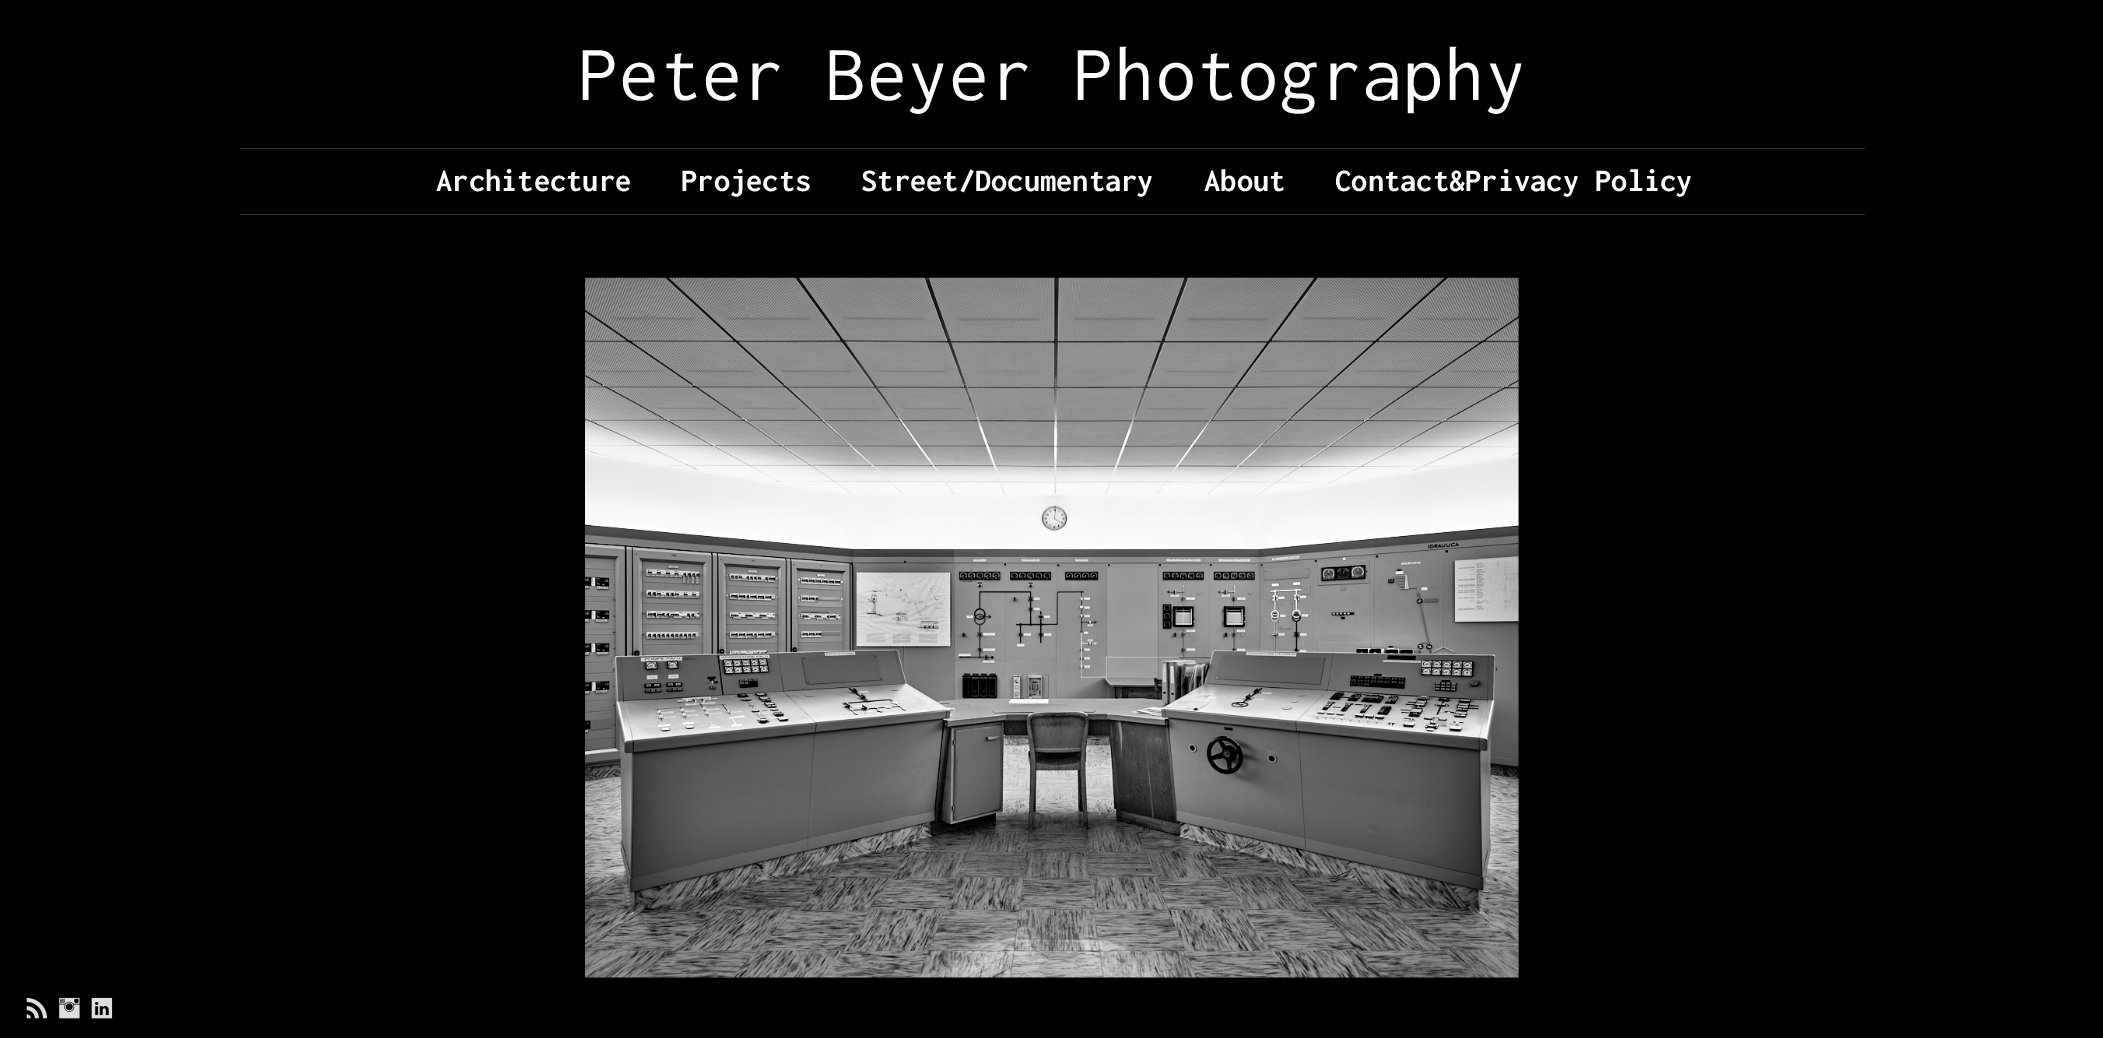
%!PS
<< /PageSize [2103 1038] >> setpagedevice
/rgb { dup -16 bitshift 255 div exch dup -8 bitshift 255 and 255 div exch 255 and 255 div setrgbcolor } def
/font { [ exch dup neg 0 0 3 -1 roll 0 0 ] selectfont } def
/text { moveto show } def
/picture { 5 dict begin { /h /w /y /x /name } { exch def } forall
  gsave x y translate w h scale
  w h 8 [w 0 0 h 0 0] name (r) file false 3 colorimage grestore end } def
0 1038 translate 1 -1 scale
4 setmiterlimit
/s1 { /Inconsolata-Bold 32.5 font 16#FFFAFF rgb } def
16#000000 rgb
0 0 2103 1038 rectfill
/Inconsolata-Regular 80 font
16#FFFAFF rgb
578 100 moveto 1.25 0 (Peter Beyer Photography) ashow
16#333333 rgb
240 148 1625 1 rectfill
240 214 1625 1 rectfill
s1
(Architecture) 436 191 text
(Projects) 681 191 text
(Street/Documentary) 861 191 text
(About) 1204 191 text
(Contact&Privacy Policy) 1335 191 text
(pic1.raw) 585 277 934 701 picture
(pic2.raw) 26 998 21 21 picture
(pic3.raw) 59 997 21 22 picture
(pic4.raw) 91 997 22 22 picture
showpage
